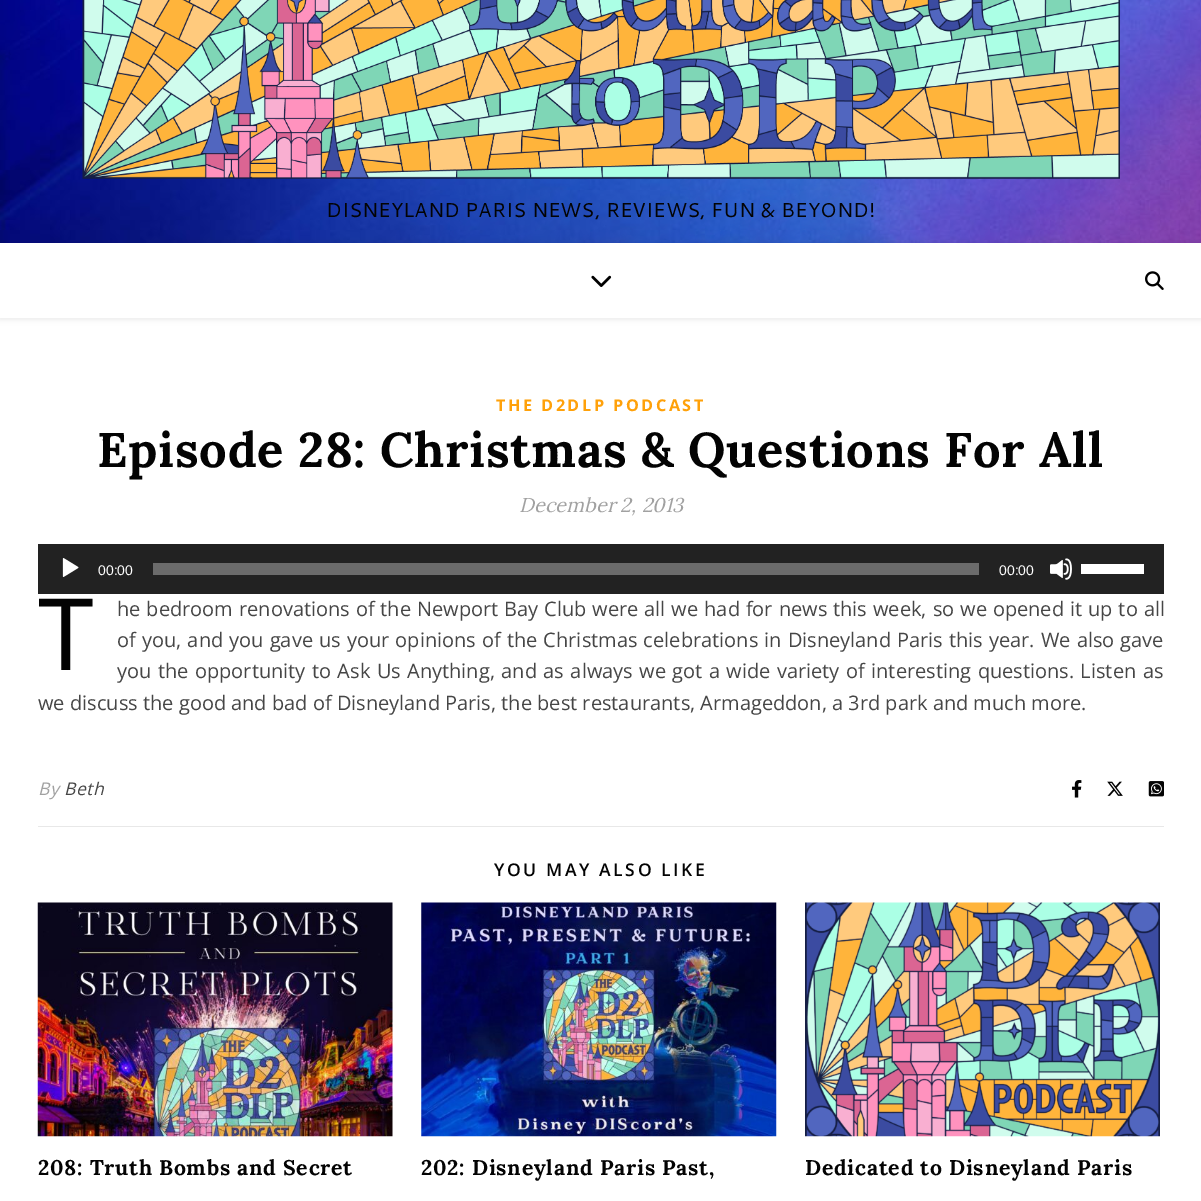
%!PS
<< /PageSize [1201 1201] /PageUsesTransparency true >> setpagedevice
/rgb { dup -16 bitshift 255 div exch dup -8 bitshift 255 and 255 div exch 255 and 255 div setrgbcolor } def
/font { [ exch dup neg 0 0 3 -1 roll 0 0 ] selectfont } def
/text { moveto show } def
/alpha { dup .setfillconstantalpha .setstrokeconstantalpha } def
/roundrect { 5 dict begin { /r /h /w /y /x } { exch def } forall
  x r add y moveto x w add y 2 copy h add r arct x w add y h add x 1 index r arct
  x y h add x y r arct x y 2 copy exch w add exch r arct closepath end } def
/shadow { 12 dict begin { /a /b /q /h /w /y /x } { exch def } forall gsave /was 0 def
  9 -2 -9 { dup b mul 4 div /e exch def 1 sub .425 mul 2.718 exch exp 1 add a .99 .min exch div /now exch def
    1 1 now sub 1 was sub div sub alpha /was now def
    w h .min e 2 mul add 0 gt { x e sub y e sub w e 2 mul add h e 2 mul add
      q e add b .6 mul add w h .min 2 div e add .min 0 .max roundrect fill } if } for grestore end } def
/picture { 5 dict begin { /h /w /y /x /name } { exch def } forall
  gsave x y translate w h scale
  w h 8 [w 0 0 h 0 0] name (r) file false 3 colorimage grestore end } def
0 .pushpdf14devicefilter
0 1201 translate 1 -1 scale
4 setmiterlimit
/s1 { /Cantarell-Regular 20 font 16#030303 rgb } def
/s2 { /Lora-Italic 20 font 16#A1A1A1 rgb } def
/s3 { /LiberationSans-Regular 14 font 16#FFFFFF rgb } def
/s4 { /NotoSans-Regular 100 font 16#030303 rgb } def
/s5 { /OpenSans-Regular 20 font 16#464646 rgb } def
16#FFFFFF rgb
0 0 1201 1201 rectfill
(pic1.raw) 0 0 1201 243 picture
(pic2.raw) 82 0 1038 179 picture
s1
(DISNEYLAND PARIS NEWS, REVIEWS, FUN & BEYOND!) 326 217 text
16#000000 rgb
0 244 1201 75 0 3 0.1 shadow
16#FFFFFF rgb
0 243 1201 75 rectfill
(pic3.raw) 591 275 21 12 picture
(pic4.raw) 1145 271 19 19 picture
/OpenSans-Bold 16.25 font
16#FFA10A rgb
496 411 moveto 2.5 0 (THE D2DLP PODCAST) ashow
/Lora-Bold 48.75 font
16#030303 rgb
97 467 moveto 0.75 0 (Episode 28: Christmas & Questions For All) ashow
s2
(December 2, 2013) 519 512 text
16#222222 rgb
38 544 1126 50 rectfill
(pic5.raw) 62 558 17 19 picture
s3
(00:00) 98 575 text
16#6B6B6B rgb
153 563 826 12 rectfill
s3
(00:00) 999 575 text
(pic6.raw) 1050 558 22 22 picture
1081 564 63 10 rectfill
s4
(T) 38 670 text
/OpenSans-Regular 20 font
16#464646 rgb
117 616 moveto 0.75 0 32 (he bedroom renovations of the Newport Bay Club were all we had for news this week, so we opened it up to all) widthshow
117 647 moveto 0.9 0 32 (of you, and you gave us your opinions of the Christmas celebrations in Disneyland Paris this year. We also gave) widthshow
117 678 moveto 1.25 0 32 (you the opportunity to Ask Us Anything, and as always we got a wide variety of interesting questions. Listen as) widthshow
(we discuss the good and bad of Disneyland Paris, the best restaurants, Armageddon, a 3rd park and much more.) 38 710 text
16#E8E8E8 rgb
38 826 1126 1 rectfill
/OpenSans-Italic 17.5 font
16#A1A1A1 rgb
38 795 moveto 0.5 0 (By) ashow
16#464646 rgb
64 795 moveto 0.5 0 (Beth) ashow
(pic7.raw) 1072 780 10 18 picture
(pic8.raw) 1107 781 16 15 picture
(pic9.raw) 1148 781 16 16 picture
/OpenSans-SemiBold 17.5 font
16#030303 rgb
494 876 moveto 2.6 0 (YOU MAY ALSO LIKE) ashow
(pic10.raw) 37 902 356 235 picture
/Lora-Bold 21.25 font
38 1175 moveto 0.75 0 (208: Truth Bombs and Secret) ashow
(pic11.raw) 421 902 356 235 picture
421 1175 moveto 0.75 0 (202: Disneyland Paris Past,) ashow
(pic12.raw) 805 902 355 235 picture
805 1175 moveto 0.75 0 (Dedicated to Disneyland Paris) ashow
.poppdf14devicefilter showpage
